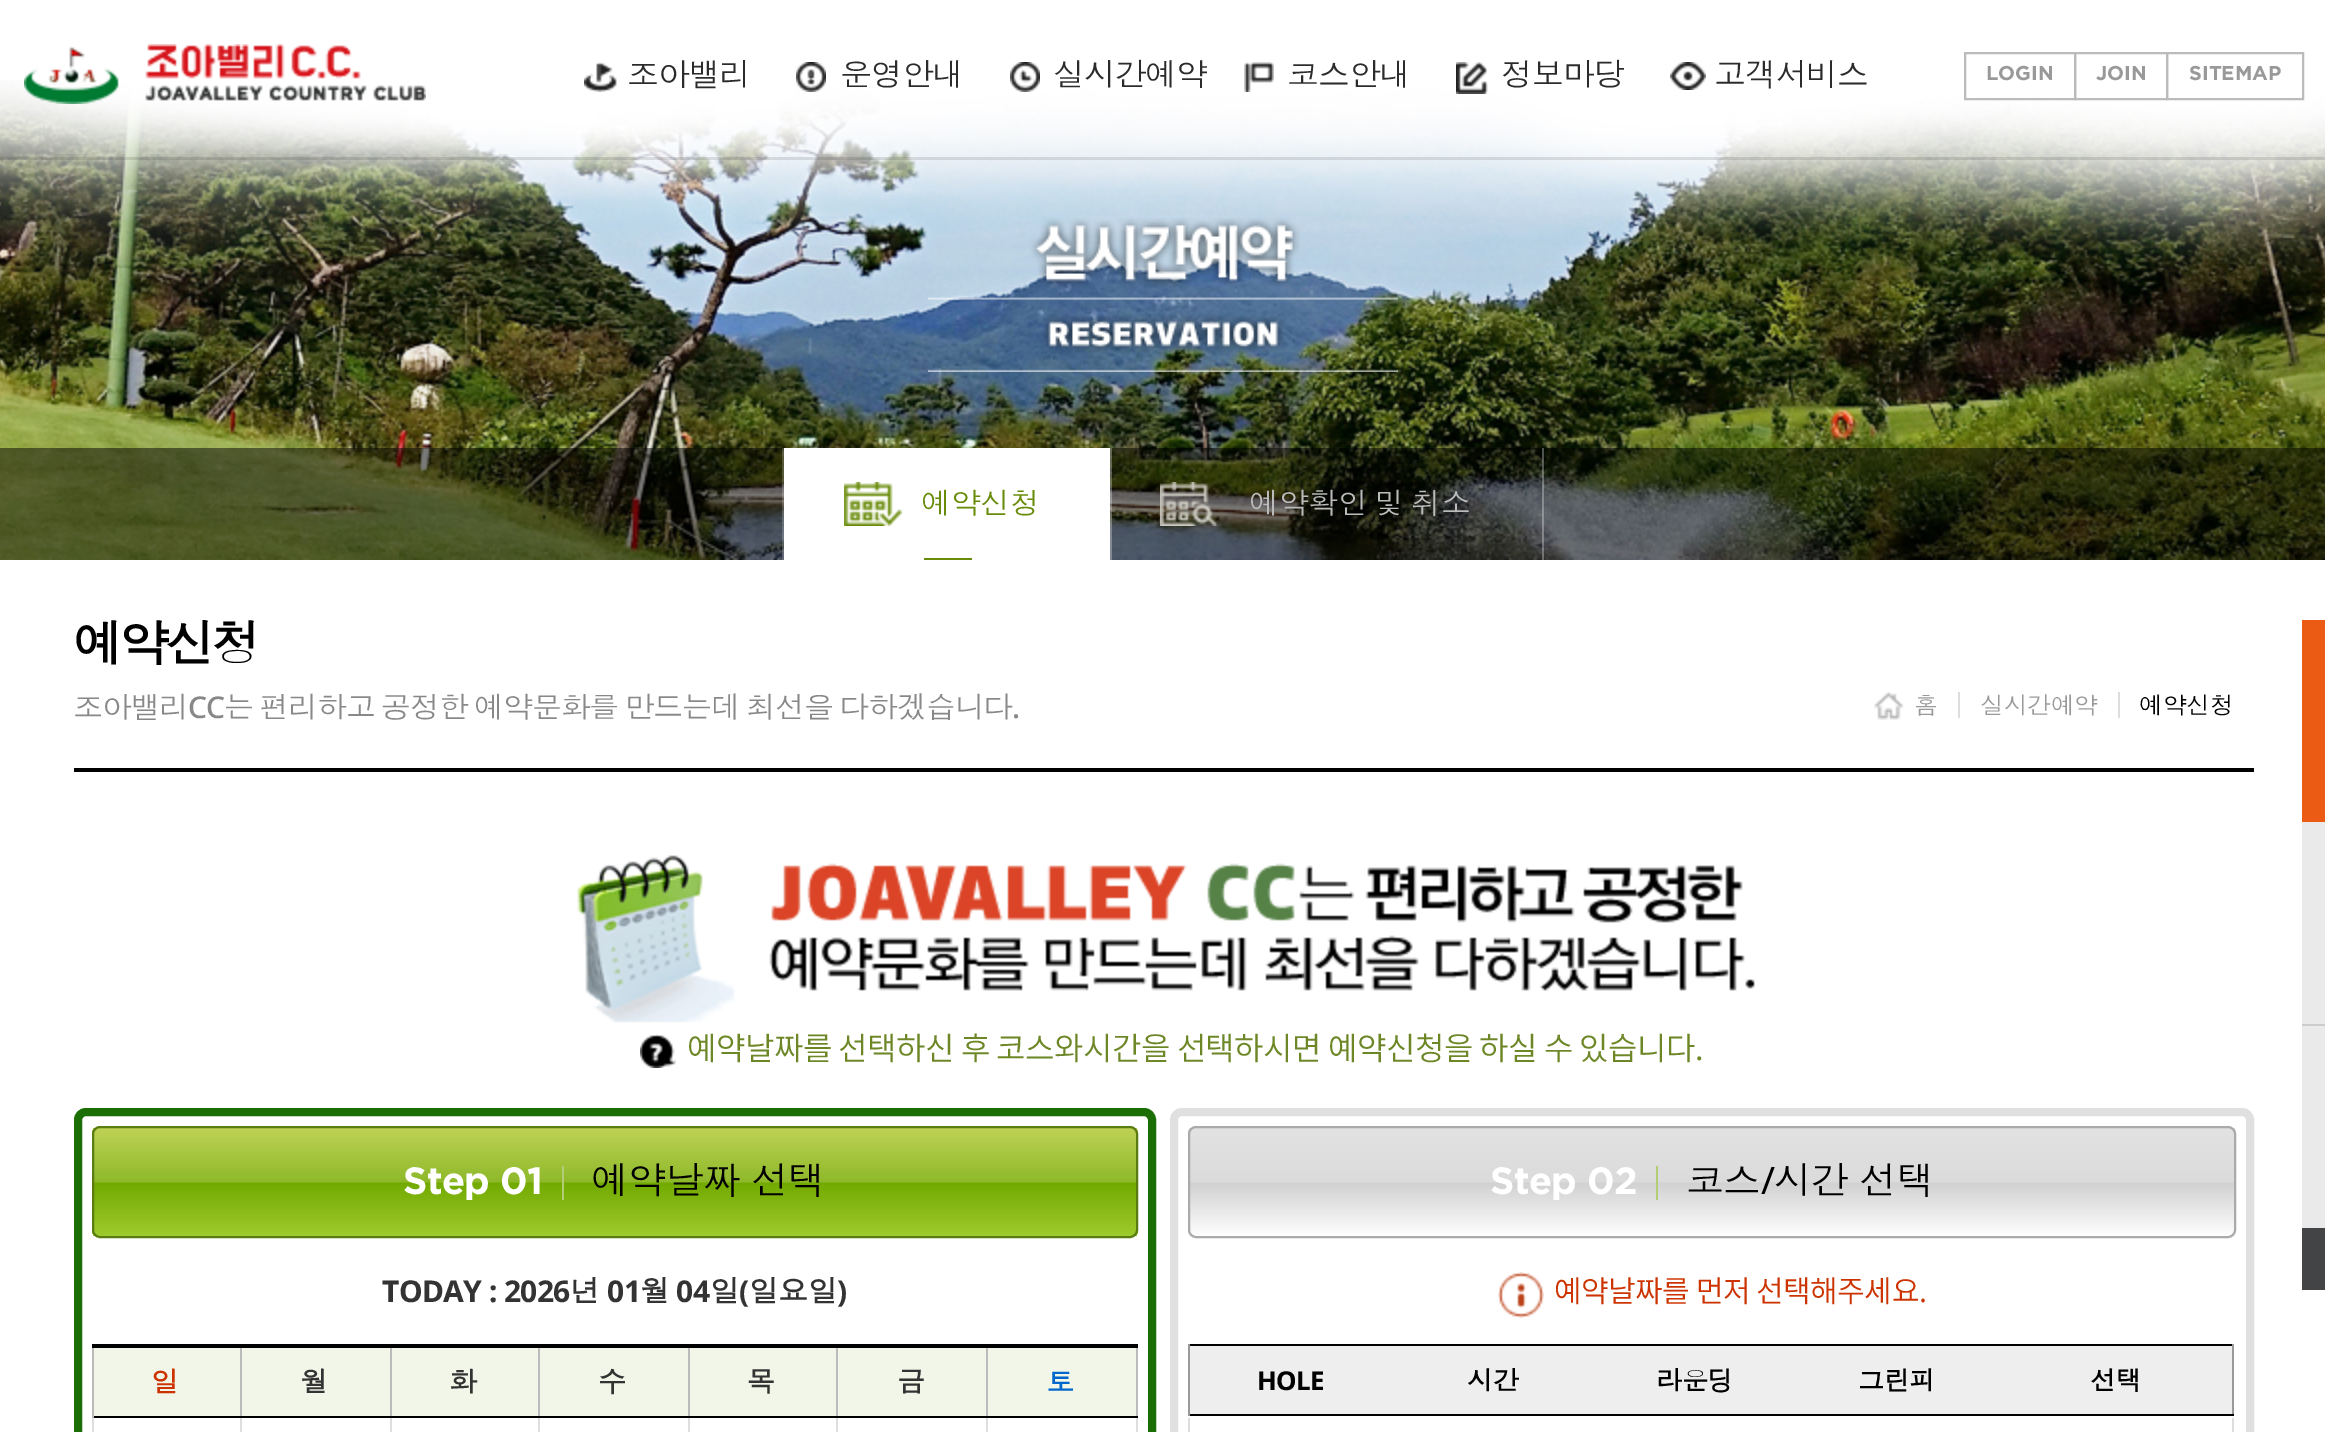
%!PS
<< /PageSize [2325 1432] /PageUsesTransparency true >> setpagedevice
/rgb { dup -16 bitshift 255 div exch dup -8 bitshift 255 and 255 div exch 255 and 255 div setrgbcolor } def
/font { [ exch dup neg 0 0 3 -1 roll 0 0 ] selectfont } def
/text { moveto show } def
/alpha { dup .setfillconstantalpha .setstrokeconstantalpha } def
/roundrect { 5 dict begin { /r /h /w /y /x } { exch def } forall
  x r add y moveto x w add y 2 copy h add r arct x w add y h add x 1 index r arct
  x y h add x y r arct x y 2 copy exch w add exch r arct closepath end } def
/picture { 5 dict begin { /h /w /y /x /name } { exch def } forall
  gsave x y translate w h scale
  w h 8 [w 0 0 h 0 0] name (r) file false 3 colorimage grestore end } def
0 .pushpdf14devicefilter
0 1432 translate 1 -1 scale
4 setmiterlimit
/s1 { /Gotham-Bold 20 font 16#999999 rgb } def
16#FFFFFF rgb
0 0 2325 1432 rectfill
(pic8.raw) 0 80 2325 480 picture
0.11 alpha
16#000000 rgb
0 157 2325 3 rectfill
1 alpha
(pic1.raw) 24 44 402 60 picture
(pic2.raw) 584 62 33 30 picture
/Dotum-Regular 32 font
16#2B2B2B rgb
627 86 moveto -1.25 0 (조아밸리) ashow
(pic3.raw) 796 62 30 30 picture
840 86 moveto -1.25 0 (운영안내) ashow
(pic4.raw) 1010 62 30 30 picture
1053 86 moveto -1.25 0 (실시간예약) ashow
(pic5.raw) 1244 62 30 30 picture
1287 86 moveto -1.25 0 (코스안내) ashow
(pic6.raw) 1456 62 32 32 picture
1501 86 moveto -1.25 0 (정보마당) ashow
(pic7.raw) 1670 62 36 28 picture
1714 86 moveto -1.25 0 (고객서비스) ashow
16#BBBBBB rgb
2 setlinewidth
1965 53 110 46 rectstroke
s1
(LOGIN) 1986 80 text
16#BBBBBB rgb
2075 53 92 46 rectstroke
s1
(JOIN) 2096 80 text
16#BBBBBB rgb
2167 53 136 46 rectstroke
s1
(SITEMAP) 2189 80 text
(pic9.raw) 928 218 470 154 picture
0.5 alpha
16#000000 rgb
0 448 2325 112 rectfill
0.3 alpha
16#FFFFFF rgb
1110 448 2 112 rectfill
0.2 alpha
782 448 2 112 rectfill
1 alpha
784 448 326 112 rectfill
(pic10.raw) 844 482 58 44 picture
/Dotum-Regular 30 font
16#688B0A rgb
921 514 moveto -0.5 0 (예약신청) ashow
924 558 48 2 rectfill
0.3 alpha
16#FFFFFF rgb
1542 448 2 112 rectfill
1 alpha
(pic11.raw) 1160 482 58 44 picture
16#BBBBBB rgb
1249 514 moveto -2.25 0 32 -0.5 0 (예약확인 및 취소) awidthshow
/Dotum-Bold 50 font
16#000000 rgb
73 662 moveto -4 0 (예약신청) ashow
74 768 2180 4 rectfill
/Dotum-Regular 30 font
16#888888 rgb
73 718 moveto -1.2 0 (조아밸리) ashow
/NotoSans-Medium 30 font
188 718 moveto -1.2 0 (CC) ashow
/Dotum-Regular 30 font
224 718 moveto -2.25 0 32 -1.2 0 (는 편리하고 공정한 예약문화를 만드는데 최선을 다하겠습니다) awidthshow
/NotoSans-Medium 30 font
1012 718 moveto -1.2 0 (.) ashow
(pic12.raw) 1874 692 30 28 picture
/Dotum-Regular 24 font
16#999999 rgb
1914 714 moveto -0.5 0 (홈) ashow
16#DDDDDD rgb
1958 692 2 26 rectfill
16#999999 rgb
1980 714 moveto -0.5 0 (실시간예약) ashow
16#DDDDDD rgb
2118 692 2 26 rectfill
16#000000 rgb
2139 714 moveto -0.5 0 (예약신청) ashow
16#EC5B13 rgb
2302 620 23 202 rectfill
16#EAEAEA rgb
2302 822 23 202 rectfill
16#CCCCCC rgb
2302 1024 23 2 rectfill
16#EAEAEA rgb
2302 1026 23 202 rectfill
16#424446 rgb
2302 1228 23 62 rectfill
(pic13.raw) 577 855 1178 168 picture
(pic14.raw) 640 1034 36 34 picture
/NotoSansKR-Light 32 font
16#6D8727 rgb
687 1060 moveto -0.5 0 (예약날짜를 선택하신 후 코스와시간을 선택하시면 예약신청을 하실 수 있습니다.) ashow
16#1B6E04 rgb
8 setlinewidth
78 1112 1074 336 8 roundrect stroke
gsave
92 1126 1046 112 8 roundrect clip newpath
gsave 92 1128 moveto 1138 1128 lineto 1138 1236 lineto 92 1236 lineto closepath clip newpath
<< /ShadingType 2 /ColorSpace /DeviceRGB /Coords [615 1128 615 1236] /Extend [true true] /Function << /FunctionType 3 /Domain [0 1] /Functions [<< /FunctionType 2 /Domain [0 1] /C0 [0.749 0.824 0.333] /C1 [0.557 0.725 0.165] /N 1 >> << /FunctionType 2 /Domain [0 1] /C0 [0.557 0.725 0.165] /C1 [0.447 0.667 0] /N 1 >> << /FunctionType 2 /Domain [0 1] /C0 [0.447 0.667 0] /C1 [0.62 0.796 0.176] /N 1 >>] /Bounds [0.5 0.51] /Encode [0 1 0 1 0 1] >> >> shfill grestore
grestore
16#5A7D12 rgb
2 setlinewidth
93 1127 1044 110 7 roundrect stroke
/Gotham-Bold 38 font
16#FFFFFF rgb
403 1194 moveto -0.75 0 (Step 01) ashow
16#B3CC76 rgb
562 1166 2 34 rectfill
/Dotum-Regular 38 font
16#000000 rgb
591 1194 moveto -1 0 32 -0.75 0 (예약날짜 선택) awidthshow
/NotoSans-Bold 30 font
16#333333 rgb
382 1302 moveto -0.6 0 (TODAY : 2026) ashow
/Dotum-Bold 30 font
570 1302 moveto -0.6 0 (년) ashow
/NotoSans-Bold 30 font
607 1302 moveto -0.6 0 (01) ashow
/Dotum-Bold 30 font
640 1302 moveto -0.6 0 (월) ashow
/NotoSans-Bold 30 font
676 1302 moveto -0.6 0 (04) ashow
/Dotum-Bold 30 font
710 1302 moveto -0.6 0 (일 일요일) ashow
/NotoSans-Bold 30 font
739 1302 moveto -0.6 0 (\() ashow
837 1302 moveto -0.6 0 (\)) ashow
16#DEDEDE rgb
1136 1416 2 16 rectfill
16#BBBBBB rgb
1136 1346 2 72 rectfill
16#DEDEDE rgb
986 1416 2 16 rectfill
16#000000 rgb
986 1416 152 2 rectfill
16#BBBBBB rgb
986 1346 2 72 rectfill
16#DEDEDE rgb
836 1416 2 16 rectfill
16#000000 rgb
836 1416 152 2 rectfill
16#BBBBBB rgb
836 1346 2 72 rectfill
16#DEDEDE rgb
688 1416 2 16 rectfill
16#000000 rgb
688 1416 150 2 rectfill
16#BBBBBB rgb
688 1346 2 72 rectfill
16#DEDEDE rgb
538 1416 2 16 rectfill
16#000000 rgb
538 1416 152 2 rectfill
16#BBBBBB rgb
538 1346 2 72 rectfill
16#DEDEDE rgb
390 1416 2 16 rectfill
16#000000 rgb
390 1416 150 2 rectfill
16#BBBBBB rgb
390 1346 2 72 rectfill
16#DEDEDE rgb
240 1416 2 16 rectfill
16#000000 rgb
240 1416 152 2 rectfill
16#BBBBBB rgb
240 1346 2 72 rectfill
16#DEDEDE rgb
92 1416 2 16 rectfill
16#000000 rgb
92 1416 150 2 rectfill
16#BBBBBB rgb
92 1346 2 72 rectfill
16#000000 rgb
92 1344 1046 4 rectfill
16#F2F6E8 rgb
94 1348 146 68 rectfill
/Dotum-Bold 28 font
16#CC3300 rgb
151 1392 moveto 4 0 (일) ashow
16#F2F6E8 rgb
242 1348 148 68 rectfill
16#333333 rgb
300 1392 moveto 4 0 (월) ashow
16#F2F6E8 rgb
392 1348 146 68 rectfill
16#333333 rgb
449 1392 moveto 4 0 (화) ashow
16#F2F6E8 rgb
540 1348 148 68 rectfill
16#333333 rgb
598 1392 moveto 4 0 (수) ashow
16#F2F6E8 rgb
690 1348 146 68 rectfill
16#333333 rgb
747 1392 moveto 4 0 (목) ashow
16#F2F6E8 rgb
838 1348 148 68 rectfill
16#333333 rgb
897 1392 moveto 4 0 (금) ashow
16#F2F6E8 rgb
988 1348 148 68 rectfill
16#0066CC rgb
1046 1392 moveto 4 0 (토) ashow
16#E0E0E0 rgb
8 setlinewidth
1174 1112 1076 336 8 roundrect stroke
gsave
1188 1126 1048 112 8 roundrect clip newpath
gsave 1188 1128 moveto 2236 1128 lineto 2236 1236 lineto 1188 1236 lineto closepath clip newpath
<< /ShadingType 2 /ColorSpace /DeviceRGB /Coords [1712 1128 1712 1236] /Extend [true true] /Function << /FunctionType 3 /Domain [0 1] /Functions [<< /FunctionType 2 /Domain [0 1] /C0 [0.886 0.886 0.886] /C1 [0.859 0.859 0.859] /N 1 >> << /FunctionType 2 /Domain [0 1] /C0 [0.859 0.859 0.859] /C1 [0.82 0.82 0.82] /N 1 >> << /FunctionType 2 /Domain [0 1] /C0 [0.82 0.82 0.82] /C1 [0.996 0.996 0.996] /N 1 >>] /Bounds [0.5 0.51] /Encode [0 1 0 1 0 1] >> >> shfill grestore
grestore
16#AAAAAA rgb
2 setlinewidth
1189 1127 1046 110 7 roundrect stroke
/Gotham-Bold 38 font
16#FFFFFF rgb
1490 1194 moveto -0.75 0 (Step 02) ashow
16#B3CC76 rgb
1656 1166 2 34 rectfill
/Dotum-Regular 38 font
16#000000 rgb
1686 1194 moveto -0.75 0 (코스) ashow
/NotoSans-Regular 38 font
1761 1194 moveto -0.75 0 (/) ashow
/Dotum-Regular 38 font
1774 1194 moveto -1 0 32 -0.75 0 (시간 선택) awidthshow
(pic15.raw) 1498 1272 46 46 picture
/NotoSansKR-Light 30 font
16#CC3300 rgb
1554 1302 moveto -0.5 0 (예약날짜를 먼저 선택해주세요.) ashow
16#DDDDDD rgb
2232 1418 2 14 rectfill
1188 1418 2 14 rectfill
16#000000 rgb
1188 1344 1046 2 rectfill
16#999999 rgb
2232 1344 2 72 rectfill
16#000000 rgb
1188 1414 1046 2 rectfill
16#999999 rgb
1188 1344 2 72 rectfill
16#EEEEEE rgb
1190 1346 1042 68 rectfill
/NotoSans-Bold 26 font
16#000000 rgb
1257 1390 moveto -0.5 0 (HOLE) ashow
/Dotum-Bold 26 font
1467 1390 moveto -0.5 0 (시간) ashow
1656 1390 moveto -0.5 0 (라운딩) ashow
1858 1390 moveto -0.5 0 (그린피) ashow
2090 1390 moveto -0.5 0 (선택) ashow
.poppdf14devicefilter showpage
